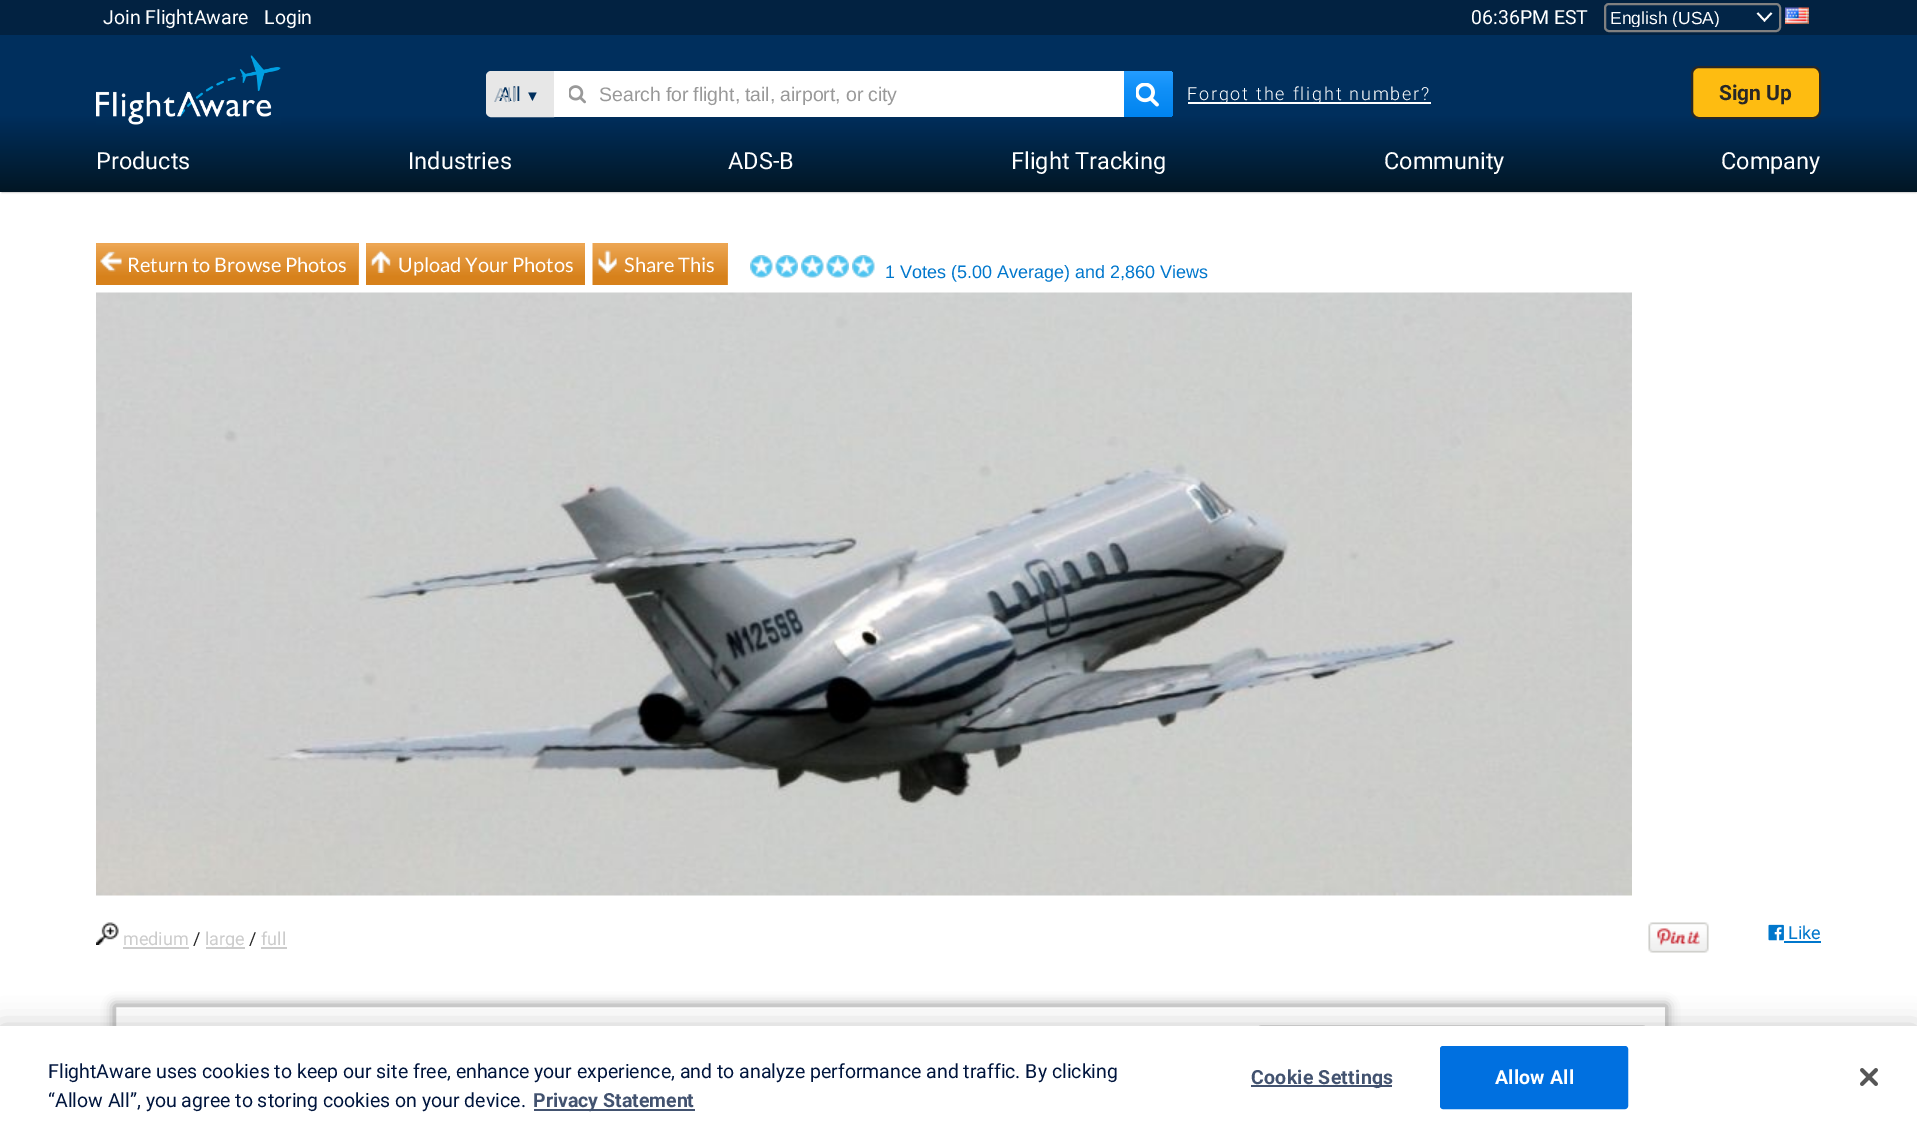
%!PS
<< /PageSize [1917 1132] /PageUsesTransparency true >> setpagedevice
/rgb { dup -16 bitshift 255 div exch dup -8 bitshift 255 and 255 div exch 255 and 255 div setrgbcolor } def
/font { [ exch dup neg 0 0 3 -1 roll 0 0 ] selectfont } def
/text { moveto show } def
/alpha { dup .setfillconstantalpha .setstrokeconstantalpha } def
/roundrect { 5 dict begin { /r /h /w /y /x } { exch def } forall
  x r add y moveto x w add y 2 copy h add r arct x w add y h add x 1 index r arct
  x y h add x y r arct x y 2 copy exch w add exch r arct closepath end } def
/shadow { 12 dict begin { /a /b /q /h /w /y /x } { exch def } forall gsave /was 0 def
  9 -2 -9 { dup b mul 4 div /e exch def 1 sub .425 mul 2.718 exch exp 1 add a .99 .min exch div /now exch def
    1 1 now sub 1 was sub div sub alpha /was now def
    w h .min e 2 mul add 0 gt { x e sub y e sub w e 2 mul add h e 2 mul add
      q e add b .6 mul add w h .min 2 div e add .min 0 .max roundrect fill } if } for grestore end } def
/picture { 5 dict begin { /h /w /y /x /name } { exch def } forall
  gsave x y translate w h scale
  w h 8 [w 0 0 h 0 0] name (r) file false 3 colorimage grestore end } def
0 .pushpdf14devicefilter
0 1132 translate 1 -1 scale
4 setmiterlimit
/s1 { /Roboto-Regular 19.5 font 16#FFFFFF rgb } def
/s2 { /LiberationSans-Regular 17.5 font 16#FFFFFF rgb } def
/s3 { /Roboto-Regular 19.5 font 16#002F5D rgb } def
/s4 { /LiberationSans-Regular 15 font 16#002F5D rgb } def
/s5 { /LiberationSans-Regular 20 font 16#A3B1BE rgb } def
/s6 { /Roboto-Bold 21 font 16#272727 rgb } def
/s7 { /Roboto-Regular 23.5 font 16#FFFFFF rgb } def
/s8 { /Lato-Regular 20 font 16#FFFFFF rgb } def
/s9 { /LiberationSans-Regular 18 font 16#0077CC rgb } def
/s10 { /Roboto-Regular 18 font 16#CCCCCC rgb } def
/s11 { /Roboto-Regular 18 font 16#272727 rgb } def
/s12 { /Roboto-Regular 18 font 16#0077CC rgb } def
/s13 { /Roboto-Regular 19.5 font 16#00153D rgb } def
/s14 { /Roboto-Bold 19.5 font 16#42526F rgb } def
16#FFFFFF rgb
0 0 1917 1132 rectfill
16#888888 rgb
2 3 1914 189 0 1 1 shadow
gsave 0 35 moveto 1917 35 lineto 1917 192 lineto 0 192 lineto closepath clip newpath
<< /ShadingType 2 /ColorSpace /DeviceRGB /Coords [959 0 959 192] /Extend [true true] /Function << /FunctionType 3 /Domain [0 1] /Functions [<< /FunctionType 2 /Domain [0 1] /C0 [0 0.184 0.365] /C1 [0 0.184 0.365] /N 1 >> << /FunctionType 2 /Domain [0 1] /C0 [0 0.184 0.365] /C1 [0.008 0.086 0.141] /N 1 >>] /Bounds [0.6] /Encode [0 1 0 1] >> >> shfill grestore
16#022241 rgb
0 0 1917 35 rectfill
s1
(Join FlightAware) 103 24 text
(Login) 264 24 text
(06:36PM EST) 1471 24 text
16#022547 rgb
1604 3 177 29 5 roundrect fill
16#FFFFFF rgb
1.8 setlinewidth
1757.5 13 moveto 1764.5 20.5 lineto 1771.5 13 lineto stroke
16#808080 rgb
2 setlinewidth
1605 4 175 27 4 roundrect stroke
gsave
1611 8 162 19 rectclip
s2
(English \(USA\)) 1610 24 text
grestore
(pic1.raw) 1785 7 24 17 picture
(pic2.raw) 96 55 185 70 picture
16#E7E7E7 rgb
491 72 moveto 553 72 lineto 553 116 lineto 491 116 lineto 489 116 487 114 487 112 curveto 487 76 lineto 487 74 489 72 491 72 curveto closepath gsave fill grestore
stroke
s3
(All) 499 101 text
s4
(▼) 525 101 text
s5
(All) 494 102 text
16#FFFFFF rgb
554 71 570 46 rectfill
(pic3.raw) 569 85 17 19 picture
/LiberationSans-Regular 19.5 font
16#999999 rgb
599 101 moveto -0.5 0 32 (Search for flight, tail, airport, or city) widthshow
gsave 1124 71 moveto 1168 71 lineto 1171 71 1173 73 1173 76 curveto 1173 112 lineto 1173 115 1171 117 1168 117 curveto 1124 117 lineto closepath clip newpath
<< /ShadingType 2 /ColorSpace /DeviceRGB /Coords [1148 117 1148 71] /Extend [true true] /Function << /FunctionType 3 /Domain [0 1] /Functions [<< /FunctionType 2 /Domain [0 1] /C0 [0 0.518 0.941] /C1 [0.071 0.569 0.973] /N 1 >> << /FunctionType 2 /Domain [0 1] /C0 [0.071 0.569 0.973] /C1 [0.141 0.616 1] /N 1 >>] /Bounds [0.66] /Encode [0 1 0 1] >> >> shfill grestore
(pic4.raw) 1136 83 23 24 picture
16#FFFFFF rgb
1188 102 243 2 rectfill
/Roboto-Light 18 font
1187 100 moveto 1.8 0 (Forgot the flight number?) ashow
16#FEBC11 rgb
1692 67 128 51 7 roundrect gsave fill grestore
16#272727 rgb
stroke
s6
(Sign Up) 1719 100 text
s7
(Products) 96 169 text
(Industries) 408 169 text
(ADS-B) 728 169 text
(Flight Tracking) 1011 169 text
(Community) 1384 169 text
(Company) 1721 169 text
16#EDA653 rgb
96 243 263 42 rectfill
(pic5.raw) 96 246 263 39 picture
(pic6.raw) 100 251 22 21 picture
s8
(Return to Browse Photos) 127 272 text
16#EDA653 rgb
366 243 219 3 rectfill
(pic7.raw) 366 246 219 39 picture
(pic8.raw) 370 250 21 23 picture
s8
(Upload Your Photos) 398 272 text
16#EDA653 rgb
727 243 1 42 rectfill
(pic9.raw) 592 243 136 42 picture
(pic10.raw) 597 250 20 23 picture
s8
(Share This) 624 272 text
(pic11.raw) 750 255 23 23 picture
(pic12.raw) 775 255 23 23 picture
(pic13.raw) 801 255 23 23 picture
(pic12.raw) 826 255 23 23 picture
(pic13.raw) 852 255 23 23 picture
s9
(1 Votes \(5.00 Average\) and 2,860 Views) 885 278 text
(pic14.raw) 96 292 1536 604 picture
(pic15.raw) 96 922 23 23 picture
s10
(medium) 123 945 text
123 947 66 2 rectfill
s11
(/) 193 945 text
16#CCCCCC rgb
206 947 39 2 rectfill
(large) 205 945 text
s11
(/) 249 945 text
s10
(full) 261 945 text
261 947 26 2 rectfill
(pic16.raw) 1648 922 61 31 picture
(pic17.raw) 1768 924 16 17 picture
s12
(Like) 1788 939 text
1784 941 37 2 rectfill
gsave
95 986 moveto 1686 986 lineto 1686 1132 lineto 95 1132 lineto closepath 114 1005 moveto 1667 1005 lineto 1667 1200 lineto 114 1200 lineto closepath eoclip newpath
16#999999 rgb
114 1005 1553 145 0 6 1 shadow
grestore
16#CCCCCC rgb
115 1006 1551 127 rectstroke
16#DDDDDD rgb
1258 1026 388 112 4 roundrect stroke
16#000000 rgb
0 1026 1917 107 0 13.5 0.2 shadow
16#FFFFFF rgb
0 1026 1917 106 rectfill
s13
(FlightAware uses cookies to keep our site free, enhance your experience, and to analyze performance and traffic. By clicking) 48 1078 text
(“Allow All”, you agree to storing cookies on your device.) 48 1107 text
16#42526F rgb
534 1109 161 2 rectfill
s14
(Privacy Statement) 533 1107 text
1251 1085 141 2 rectfill
1251 1084 moveto 0.25 0 (Cookie Settings) ashow
16#0070E0 rgb
1441 1047 186 61 2 roundrect gsave fill grestore
stroke
16#FFFFFF rgb
1495 1084 moveto 0.25 0 (Allow All) ashow
(pic18.raw) 1860 1068 18 18 picture
.poppdf14devicefilter showpage
